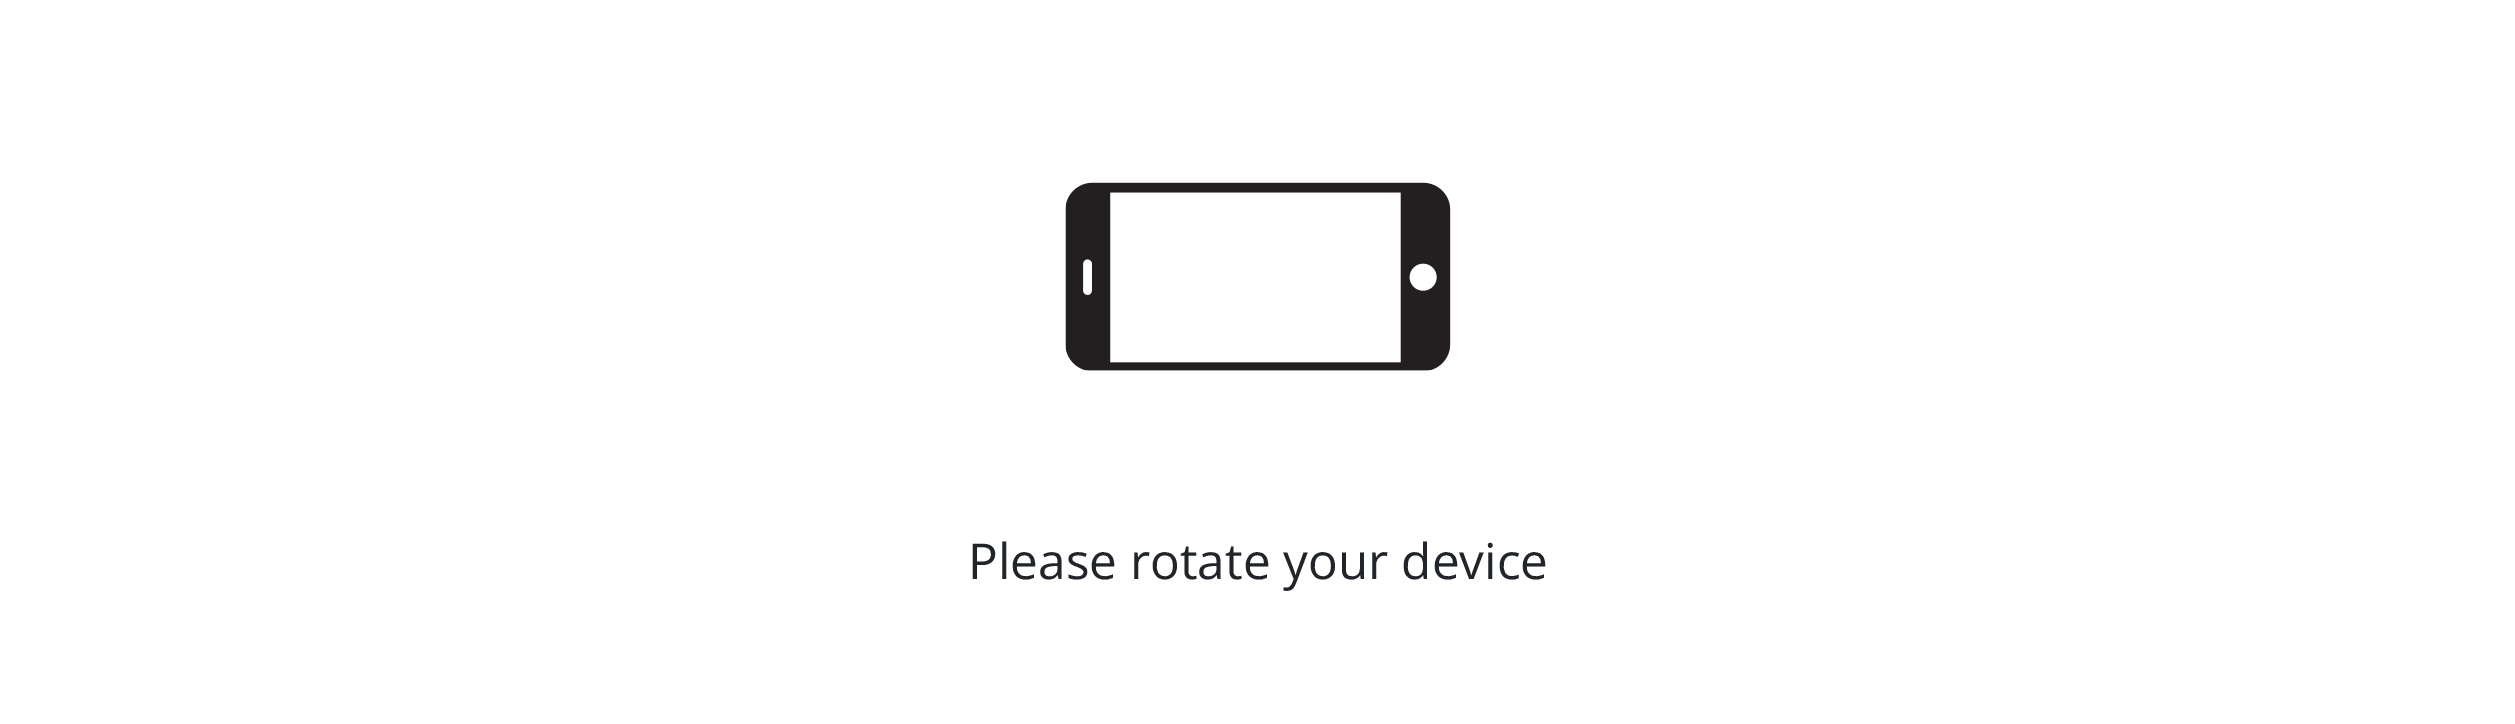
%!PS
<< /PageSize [2515 724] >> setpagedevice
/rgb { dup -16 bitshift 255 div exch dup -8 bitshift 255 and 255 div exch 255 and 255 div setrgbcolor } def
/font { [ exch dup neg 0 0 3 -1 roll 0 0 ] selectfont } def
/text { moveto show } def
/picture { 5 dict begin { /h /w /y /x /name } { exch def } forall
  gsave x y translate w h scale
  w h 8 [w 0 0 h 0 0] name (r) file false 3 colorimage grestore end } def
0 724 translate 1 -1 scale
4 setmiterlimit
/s1 { /OpenSans-Regular 49.5 font 16#212529 rgb } def
16#FFFFFF rgb
0 0 2515 724 rectfill
(pic1.raw) 1065 182 386 189 picture
s1
(Please rotate your device) 968 579 text
showpage
